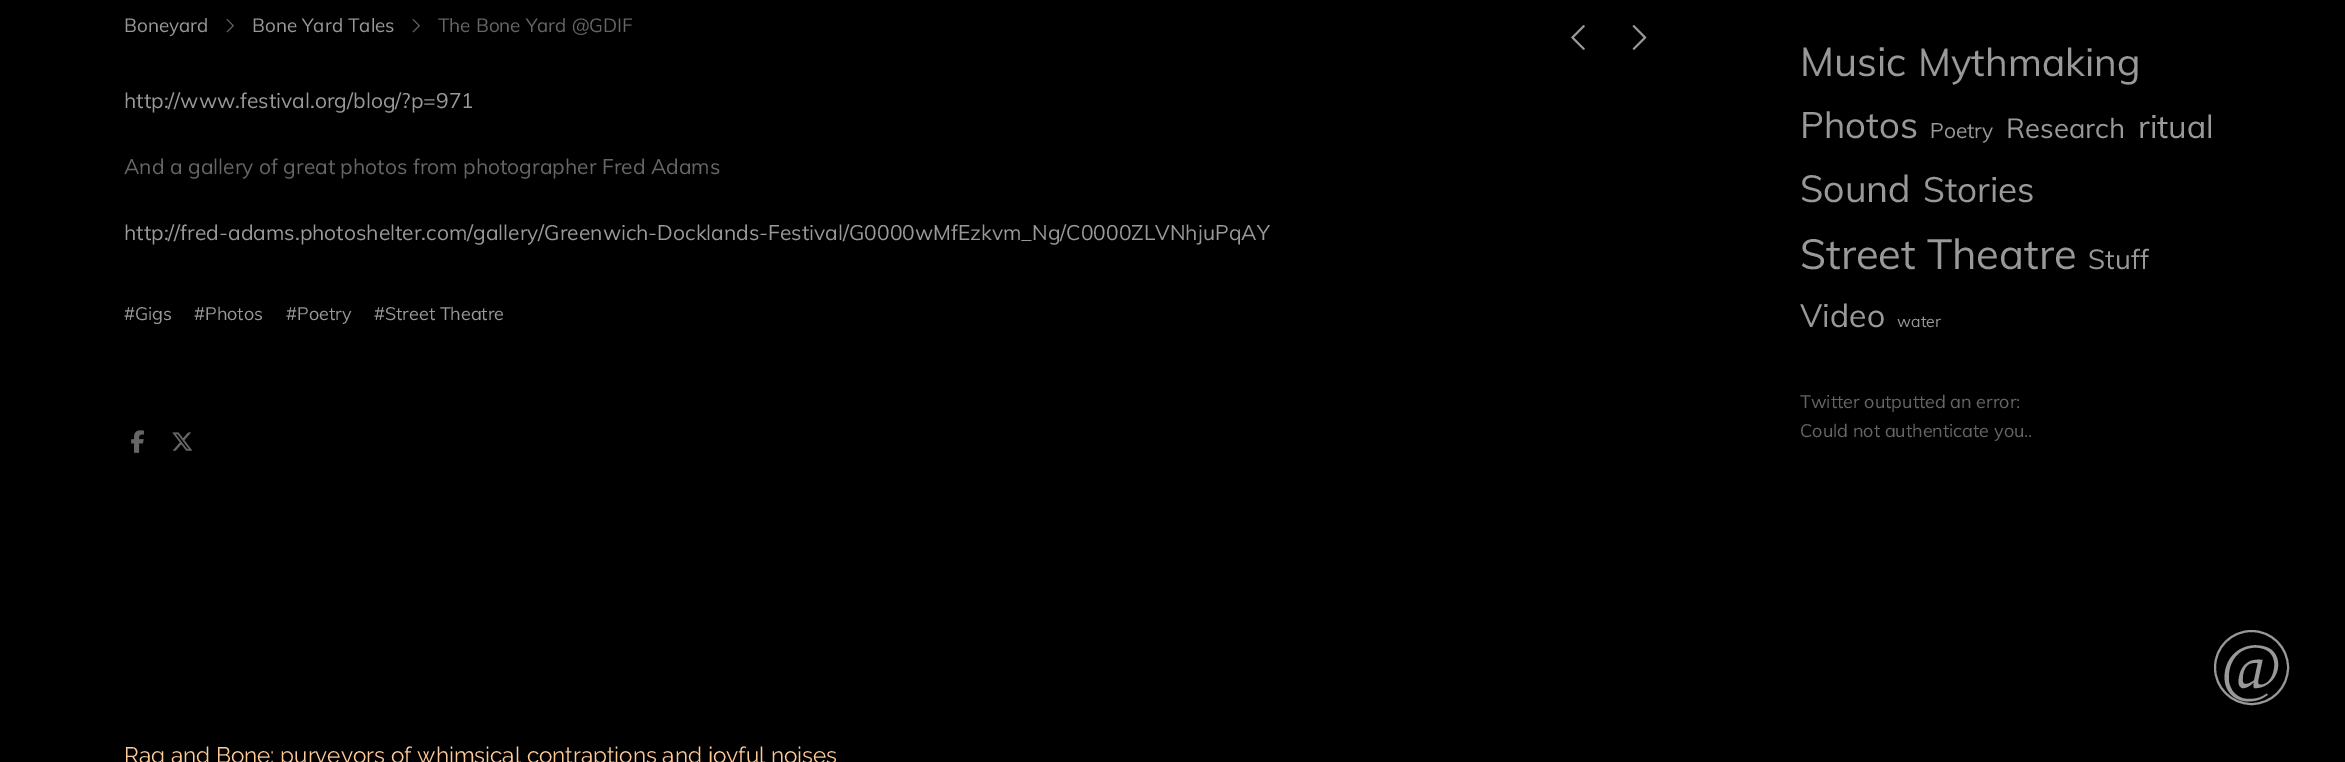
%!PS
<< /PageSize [2345 762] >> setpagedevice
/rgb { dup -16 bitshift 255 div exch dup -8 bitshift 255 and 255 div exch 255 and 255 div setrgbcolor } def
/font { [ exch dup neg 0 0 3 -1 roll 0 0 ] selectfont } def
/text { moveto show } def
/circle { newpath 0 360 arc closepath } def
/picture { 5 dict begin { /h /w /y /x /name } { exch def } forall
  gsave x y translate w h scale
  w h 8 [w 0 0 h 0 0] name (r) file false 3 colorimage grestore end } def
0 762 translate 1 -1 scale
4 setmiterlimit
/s1 { /Muli-Regular 18.9 font 16#999999 rgb } def
/s2 { /Muli-Regular 18.9 font 16#666666 rgb } def
/s3 { /Muli-Regular 21 font 16#999999 rgb } def
/s4 { /Muli-Regular 21 font 16#666666 rgb } def
/s5 { /Muli-Regular 18 font 16#999999 rgb } def
/s6 { /Muli-Regular 40 font 16#999999 rgb } def
/s7 { /Muli-Regular 38.75 font 16#999999 rgb } def
/s8 { /Muli-Regular 36.5 font 16#999999 rgb } def
/s9 { /Muli-Regular 27.5 font 16#999999 rgb } def
/s10 { /Muli-Regular 32 font 16#999999 rgb } def
/s11 { /Muli-Regular 37.5 font 16#999999 rgb } def
/s12 { /Muli-Regular 35 font 16#999999 rgb } def
/s13 { /Muli-Regular 41.75 font 16#999999 rgb } def
/s14 { /Muli-Regular 16 font 16#999999 rgb } def
/s15 { /Muli-Regular 18 font 16#666666 rgb } def
/s16 { /LiberationSerif-Regular 66 font 16#999999 rgb } def
/s17 { /Raleway-Regular 22.5 font 16#FFCC99 rgb } def
16#000000 rgb
0 0 2345 762 rectfill
s1
(Boneyard) 124 32 text
(pic1.raw) 226 19 8 14 picture
(Bone Yard Tales) 252 32 text
(pic1.raw) 412 19 8 14 picture
s2
(The Bone Yard @GDIF) 438 32 text
(pic2.raw) 1571 25 14 25 picture
(pic3.raw) 1632 25 15 25 picture
s3
(http://www.festival.org/blog/?p=971) 124 108 text
s4
(And a gallery of great photos from photographer Fred Adams) 124 174 text
s3
(http://fred-adams.photoshelter.com/gallery/Greenwich-Docklands-Festival/G0000wMfEzkvm_Ng/C0000ZLVNhjuPqAY) 124 240 text
s5
(#Gigs) 124 320 text
(#Photos) 194 320 text
(#Poetry) 286 320 text
(#Street Theatre) 374 320 text
(pic4.raw) 131 430 13 23 picture
(pic5.raw) 172 432 21 19 picture
s6
(Music) 1800 76 text
s7
(Mythmaking) 1918 76 text
s8
(Photos) 1800 138 text
s3
(Poetry) 1930 138 text
s9
(Research) 2006 138 text
s10
(ritual) 2138 138 text
s11
(Sound) 1800 202 text
s12
(Stories) 1923 202 text
s13
(Street Theatre) 1800 269 text
s9
(Stuff) 2088 269 text
s10
(Video) 1800 327 text
s14
(water) 1897 327 text
s15
(Twitter outputted an error:) 1800 408 text
(Could not authenticate you..) 1800 437 text
16#999999 rgb
2 setlinewidth
2251.5 667.5 36.5 circle stroke
s16
(@) 2221 689 text
s17
(Rag and Bone: purveyors of whimsical contraptions and joyful noises) 124 763 text
showpage
